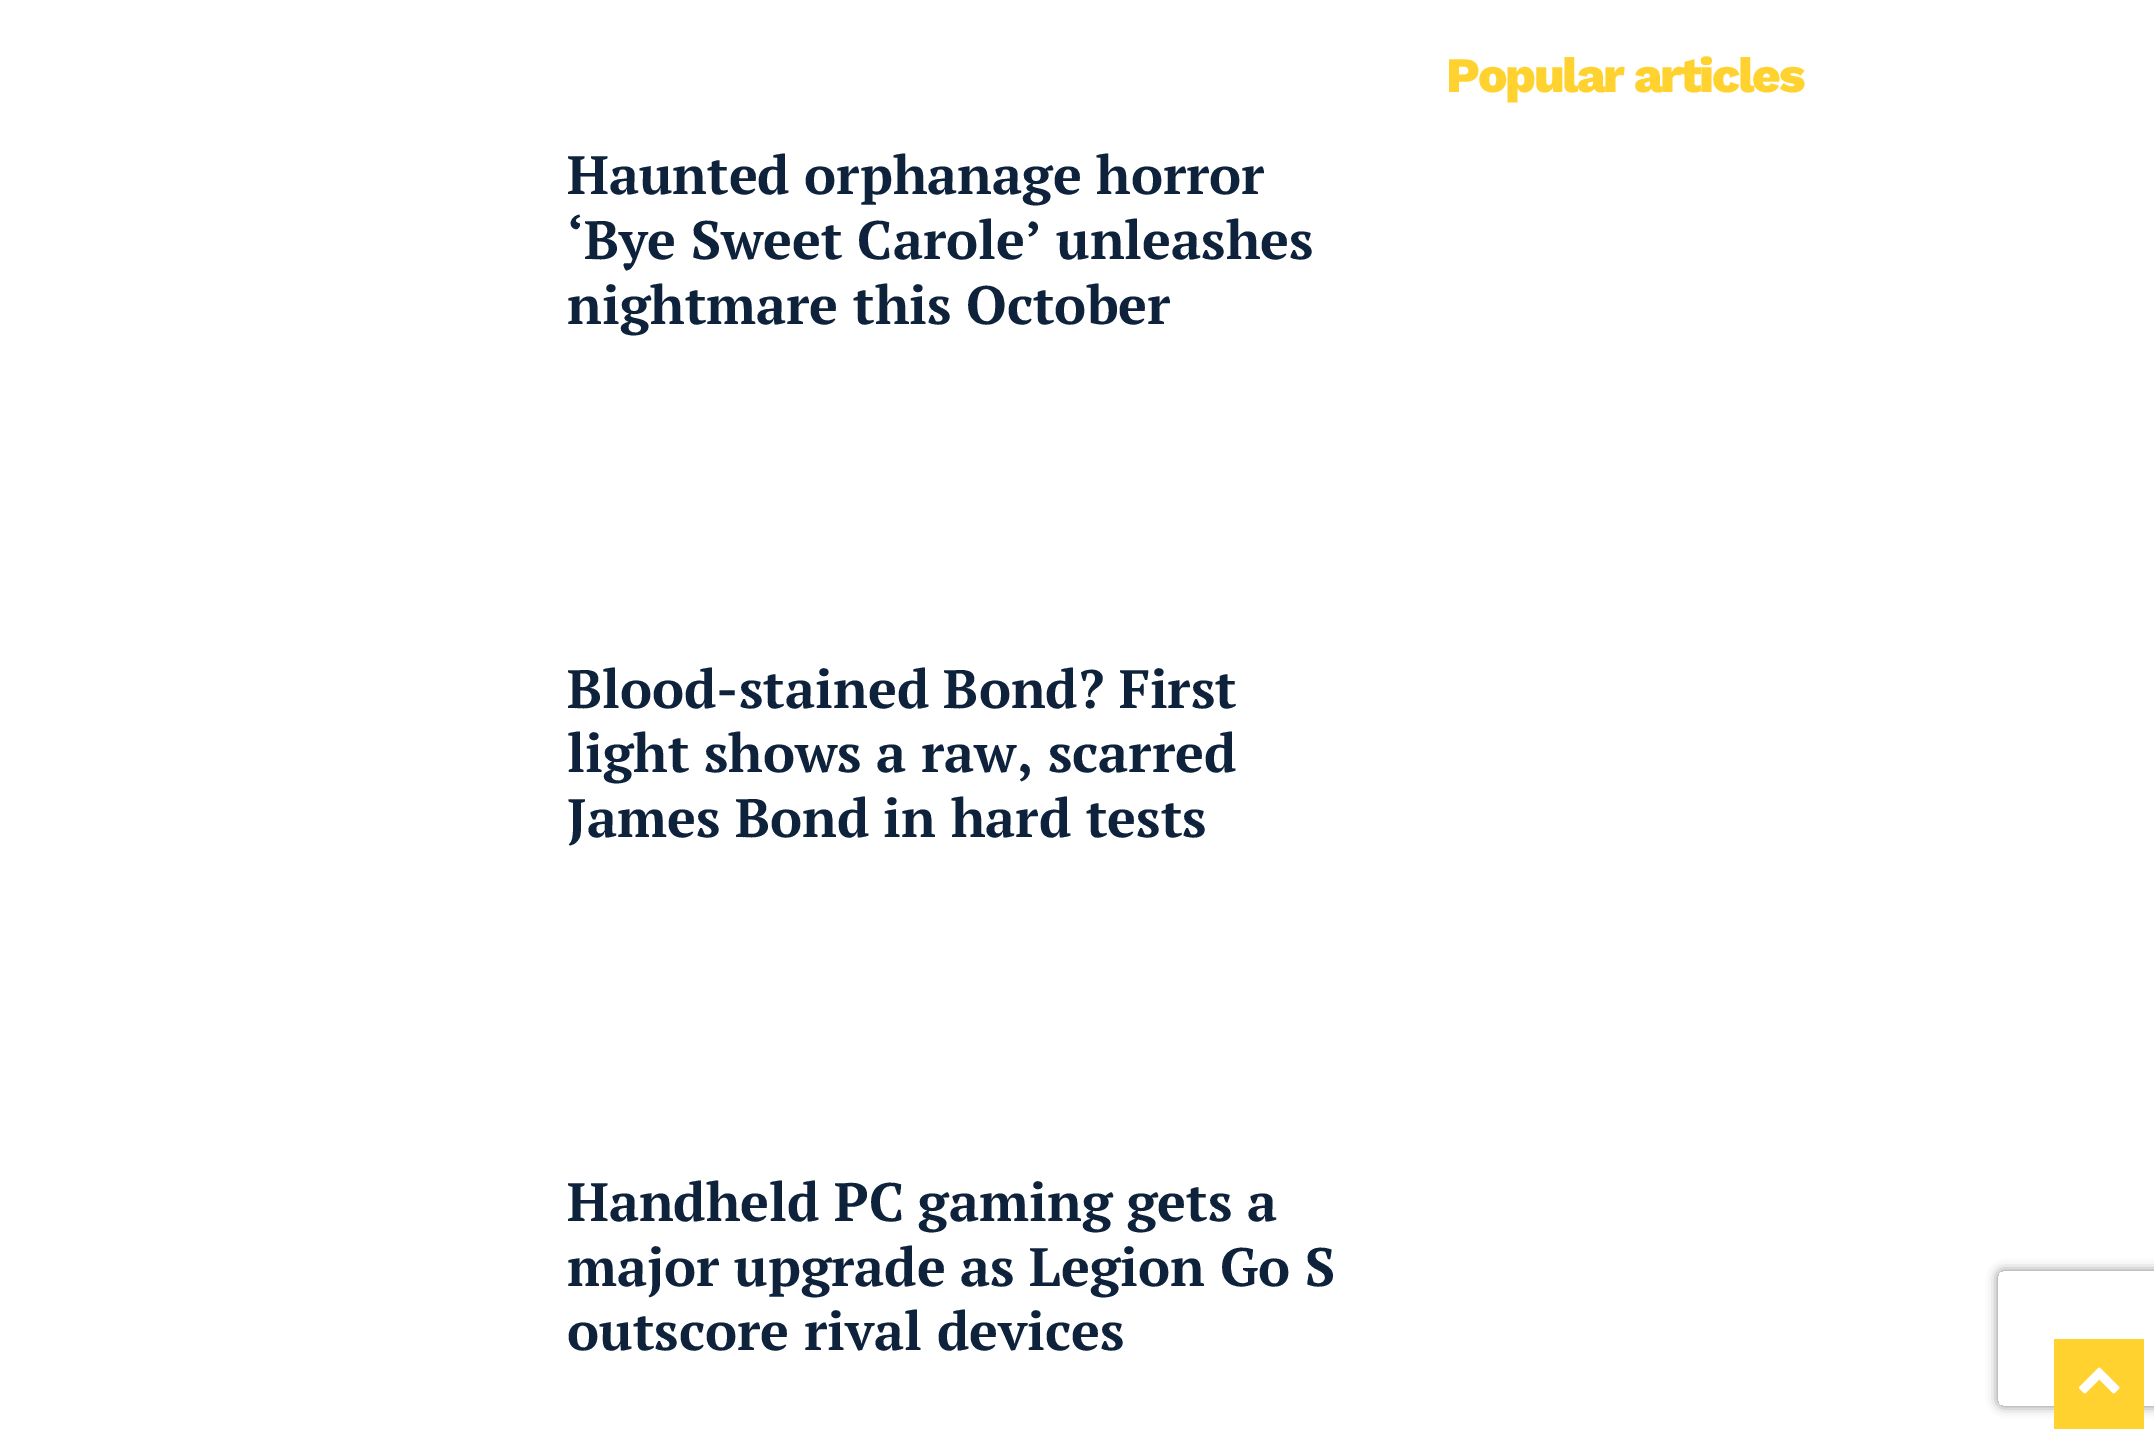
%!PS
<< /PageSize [2154 1436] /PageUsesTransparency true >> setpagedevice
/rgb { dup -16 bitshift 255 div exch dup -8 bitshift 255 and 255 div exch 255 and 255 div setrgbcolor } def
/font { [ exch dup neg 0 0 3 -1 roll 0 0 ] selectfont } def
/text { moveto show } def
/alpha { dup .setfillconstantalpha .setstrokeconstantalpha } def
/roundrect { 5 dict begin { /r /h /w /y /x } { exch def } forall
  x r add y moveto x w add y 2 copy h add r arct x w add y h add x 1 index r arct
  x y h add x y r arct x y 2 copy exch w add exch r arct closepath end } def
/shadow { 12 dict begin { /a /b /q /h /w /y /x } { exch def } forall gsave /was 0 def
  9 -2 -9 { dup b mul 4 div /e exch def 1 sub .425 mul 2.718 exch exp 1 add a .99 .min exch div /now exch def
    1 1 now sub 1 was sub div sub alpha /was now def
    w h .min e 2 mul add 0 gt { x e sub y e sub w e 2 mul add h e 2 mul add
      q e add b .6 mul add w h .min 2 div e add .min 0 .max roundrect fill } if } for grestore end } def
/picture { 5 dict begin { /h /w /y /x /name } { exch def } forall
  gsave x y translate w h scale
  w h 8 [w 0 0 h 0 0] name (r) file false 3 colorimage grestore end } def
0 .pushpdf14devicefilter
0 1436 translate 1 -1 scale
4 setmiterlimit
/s1 { /PTSerif-Bold 54 font 16#0E223B rgb } def
16#FFFFFF rgb
0 0 2154 1436 rectfill
/WorkSans-ExtraBold 49.5 font
16#FFD22F rgb
1446 92 moveto -2.25 0 (Popular articles) ashow
s1
(Haunted orphanage horror) 567 194 text
(‘Bye Sweet Carole’ unleashes) 567 259 text
(nightmare this October) 567 324 text
(Blood-stained Bond? First) 567 708 text
(light shows a raw, scarred) 567 772 text
(James Bond in hard tests) 567 837 text
(Handheld PC gaming gets a) 567 1221 text
(major upgrade as Legion Go S) 567 1286 text
(outscore rival devices) 567 1350 text
gsave
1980 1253 moveto 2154 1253 lineto 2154 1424 lineto 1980 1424 lineto closepath 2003 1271 moveto 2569 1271 lineto 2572 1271 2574 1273 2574 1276 curveto 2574 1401 lineto 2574 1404 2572 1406 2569 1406 curveto 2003 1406 lineto 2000 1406 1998 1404 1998 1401 curveto 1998 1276 lineto 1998 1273 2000 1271 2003 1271 curveto closepath eoclip newpath
16#808080 rgb
1998 1271 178 135 5 5.5 1 shadow
grestore
16#FFD22F rgb
2054 1339 90 90 rectfill
(pic1.raw) 2079 1367 41 27 picture
.poppdf14devicefilter showpage
